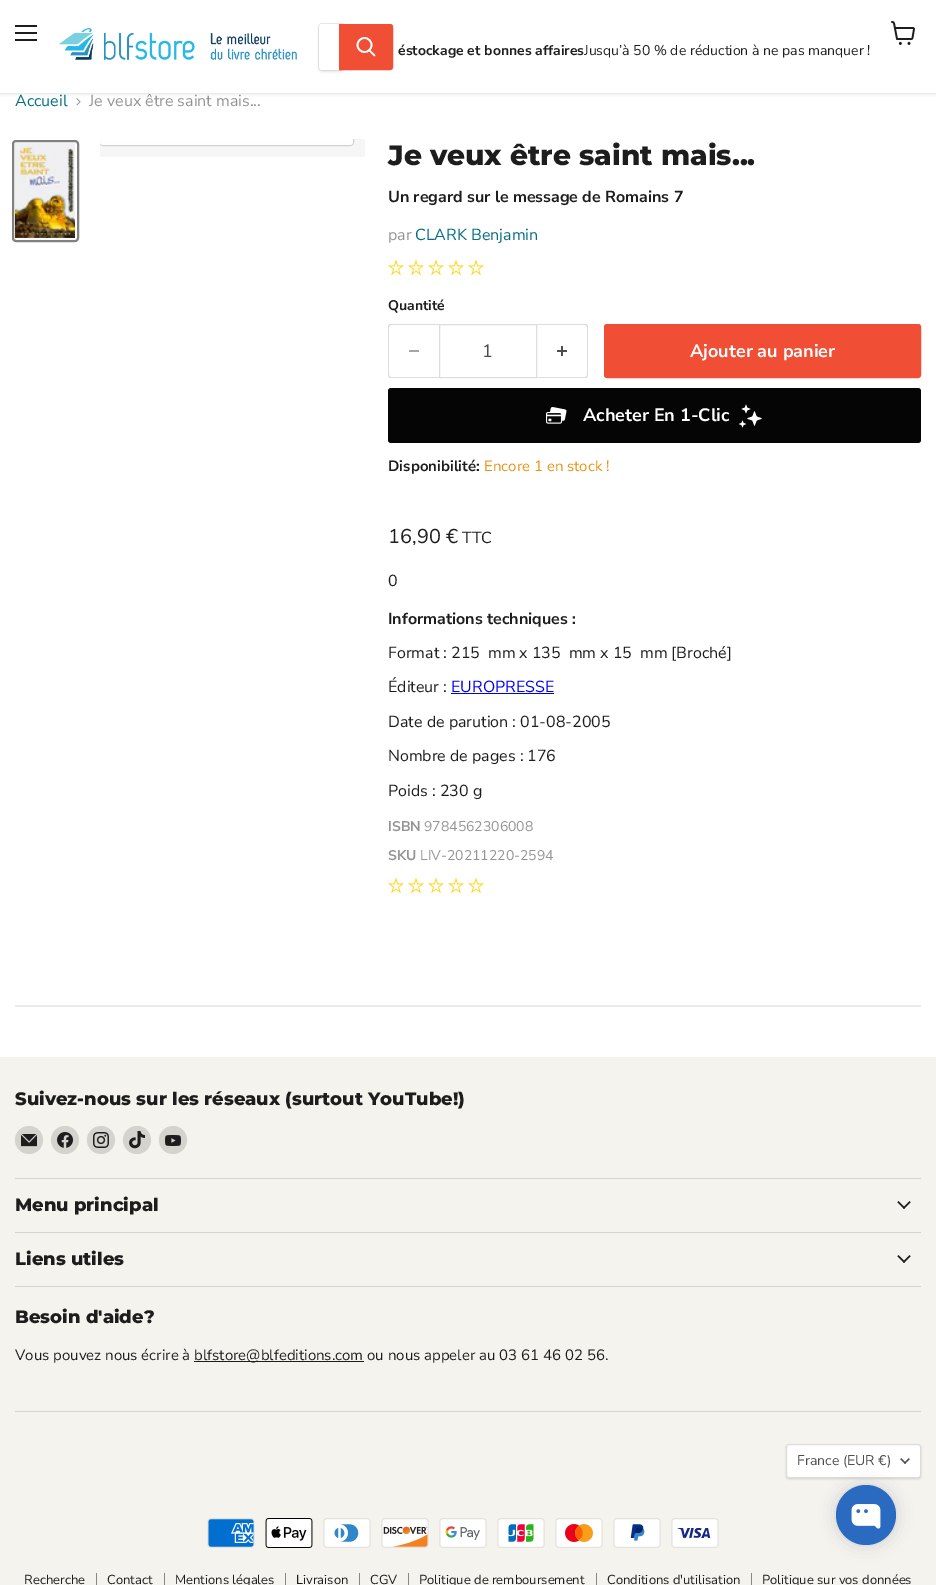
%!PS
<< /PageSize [936 1585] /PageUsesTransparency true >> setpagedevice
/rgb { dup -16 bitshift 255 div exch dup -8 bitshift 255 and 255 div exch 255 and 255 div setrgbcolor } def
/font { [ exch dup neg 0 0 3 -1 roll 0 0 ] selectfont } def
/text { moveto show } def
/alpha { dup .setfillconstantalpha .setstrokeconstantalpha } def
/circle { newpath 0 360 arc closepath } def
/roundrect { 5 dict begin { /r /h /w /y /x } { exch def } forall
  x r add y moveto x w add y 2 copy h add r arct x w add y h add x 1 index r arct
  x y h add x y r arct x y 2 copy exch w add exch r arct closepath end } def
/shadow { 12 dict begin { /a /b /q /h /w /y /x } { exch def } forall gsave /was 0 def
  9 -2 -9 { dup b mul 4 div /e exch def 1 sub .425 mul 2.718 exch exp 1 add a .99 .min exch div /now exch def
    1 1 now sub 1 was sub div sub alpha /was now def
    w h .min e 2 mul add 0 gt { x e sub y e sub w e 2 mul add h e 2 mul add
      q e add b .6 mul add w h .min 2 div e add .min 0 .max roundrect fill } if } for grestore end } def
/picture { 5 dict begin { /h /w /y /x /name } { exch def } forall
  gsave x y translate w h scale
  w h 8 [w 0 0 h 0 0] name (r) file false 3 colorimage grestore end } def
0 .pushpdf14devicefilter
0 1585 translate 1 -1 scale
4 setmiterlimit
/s1 { /NunitoSans-Regular 16 font 16#949494 rgb } def
/s2 { /NunitoSans-Bold 14 font 16#1D1D1D rgb } def
/s3 { /NunitoSans-Regular 14 font 16#1D1D1D rgb } def
/s4 { /NunitoSans-Regular 16 font 16#046E82 rgb } def
/s5 { /Montserrat-ExtraBold 28 font 16#1D1D1D rgb } def
/s6 { /NunitoSans-Bold 16 font 16#1D1D1D rgb } def
/s7 { /NunitoSans-Regular 18 font 16#4D4D4D rgb } def
/s8 { /NunitoSans-Bold 18 font 16#FFFFFF rgb } def
/s9 { /NunitoSans-Bold 15 font 16#1D1D1D rgb } def
/s10 { /NunitoSans-Regular 15 font 16#E99114 rgb } def
/s11 { /NunitoSans-Regular 20 font 16#1D1D1D rgb } def
/s12 { /NunitoSans-Regular 16 font 16#1D1D1D rgb } def
/s13 { /NunitoSans-Regular 16 font 16#0000EE rgb } def
/s14 { /NunitoSans-Bold 14 font 16#949494 rgb } def
/s15 { /NunitoSans-Regular 14 font 16#949494 rgb } def
/s16 { /Montserrat-ExtraBold 18 font 16#1D1D1D rgb } def
/s17 { /NunitoSans-Regular 15 font 16#1D1D1D rgb } def
/s18 { /NunitoSans-Regular 14 font 16#4D4D4D rgb } def
/s19 { /NunitoSans-Regular 13 font 16#1D1D1D rgb } def
16#FFFFFF rgb
0 0 936 1585 rectfill
(pic3.raw) 76 98 5 8 picture
s1
(Je veux être saint mais...) 89 106 text
16#F6F6F6 rgb
100 139 265 18 rectfill
gsave
100 139 265 18 rectclip
16#D1D1D1 rgb
99.5 100.5 254 45 3.5 roundrect stroke
grestore
gsave
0 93 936 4 rectclip
16#808080 rgb
0 1 936 93 0 2 0.25 shadow
grestore
16#1D1D1D rgb
15 25 22 2 rectfill
15 32 22 2 rectfill
15 39 22 2 rectfill
(pic1.raw) 891 21 24 24 picture
(pic2.raw) 59 28 238 32 picture
16#808080 rgb
318 25 27 48 4 1.5 0.11 shadow
0.2 alpha
318.5 23.5 26 47 3.5 roundrect stroke
1 alpha
16#FFFFFF rgb
322 24 moveto 339 24 lineto 339 70 lineto 322 70 lineto 320.5 70 319 68.5 319 67 curveto 319 27 lineto 319 25.5 320.5 24 322 24 curveto closepath fill
16#F04F36 rgb
339.5 24.5 moveto 390 24.5 lineto 391.5 24.5 392.5 25.5 392.5 27 curveto 392.5 67 lineto 392.5 68.5 391.5 69.5 390 69.5 curveto 339.5 69.5 lineto closepath gsave fill grestore
stroke
16#FFFFFF rgb
1.7 setlinewidth
1 setlinecap
374.5 55.5 moveto 369.5 50.5 lineto stroke
0 setlinecap
364.5 45 7 circle stroke
s2
(éstockage et bonnes affaires) 398 55 text
s3
(Jusqu’à 50 % de réduction à ne pas manquer !) 584 55 text
s4
(Accueil) 15 106 text
0.9 alpha
16#FFFFFF rgb
100 139 moveto 353 139 lineto 353 142 lineto 353 143.5 351.5 145 350 145 curveto 103 145 lineto 101.5 145 100 143.5 100 142 curveto closepath fill
1 alpha
16#818181 rgb
2 setlinewidth
13 141 65 100 3 roundrect stroke
(pic4.raw) 15 143 60 95 picture
s5
(Je veux être saint mais...) 388 165 text
s6
(Un regard sur le message de Romains 7) 388 202 text
s1
(par) 388 240 text
s4
(CLARK Benjamin) 415 240 text
(pic5.raw) 388 259 16 17 picture
(pic5.raw) 408 259 16 17 picture
(pic5.raw) 428 259 16 17 picture
(pic5.raw) 448 259 16 17 picture
(pic5.raw) 468 259 16 17 picture
s2
(Quantité) 388 310 text
16#DDDDDD rgb
391 324 moveto 439 324 lineto 439 378 lineto 391 378 lineto 389 378 388 377 388 375 curveto 388 327 lineto 388 325 389 324 391 324 curveto closepath 391 325 moveto 439 325 lineto 439 377 lineto 391 377 lineto 390 377 389 376 389 375 curveto 389 327 lineto 389 326 390 325 391 325 curveto closepath eofill
16#A6A6A6 rgb
409 350 10 2 rectfill
16#DDDDDD rgb
1 setlinewidth
439.5 324.5 97 53 rectstroke
s7
(1) 482 357 text
16#DDDDDD rgb
537 324 moveto 585 324 lineto 587 324 588 325 588 327 curveto 588 375 lineto 588 377 587 378 585 378 curveto 537 378 lineto closepath 537 325 moveto 585 325 lineto 586 325 587 326 587 327 curveto 587 375 lineto 587 376 586 377 585 377 curveto 537 377 lineto closepath eofill
(pic6.raw) 557 346 10 10 picture
16#F04F36 rgb
604.5 324.5 316 53 2.5 roundrect gsave fill grestore
stroke
s8
(Ajouter au panier) 690 357 text
16#050505 rgb
388 388 533 55 3 roundrect fill
(pic7.raw) 546 407 21 17 picture
s8
(Acheter En 1-Clic) 583 421 text
(pic8.raw) 739 404 23 24 picture
s9
(Disponibilité:) 388 471 text
s10
(Encore 1 en stock !) 484 471 text
s11
(16,90 €) 388 543 text
s12
(TTC) 462 543 text
(0) 388 586 text
s6
(Informations techniques :) 388 624 text
s12
(Format : 215 mm x 135 mm x 15 mm [Broché]) 388 658 text
(Éditeur :) 388 692 text
s13
(EUROPRESSE) 451 692 text
451 693 103 1 rectfill
s12
(Date de parution : 01-08-2005) 388 727 text
(Nombre de pages : 176) 388 761 text
(Poids : 230 g) 388 796 text
s14
(ISBN) 388 831 text
s15
(9784562306008) 424 831 text
s14
(SKU) 388 860 text
s15
(LIV-20211220-2594) 420 860 text
(pic5.raw) 388 877 16 17 picture
(pic5.raw) 408 877 16 17 picture
(pic5.raw) 428 877 16 17 picture
(pic5.raw) 448 877 16 17 picture
(pic5.raw) 468 877 16 17 picture
16#EBEBEB rgb
15 1005 906 2 rectfill
16#F5F3ED rgb
0 1057 936 528 rectfill
16#D5D3CE rgb
15 1178 906 1 rectfill
s16
(Suivez-nous sur les réseaux \(surtout YouTube!\)) 15 1105 text
16#D5D3CE rgb
29 1140 14 circle fill
(pic9.raw) 21 1134 16 13 picture
65 1140 14 circle fill
(pic10.raw) 57 1132 16 16 picture
101 1140 14 circle fill
(pic11.raw) 93 1132 16 16 picture
137 1140 14 circle fill
(pic12.raw) 129 1131 16 18 picture
173 1140 14 circle fill
(pic13.raw) 165 1135 16 11 picture
15 1232 906 1 rectfill
s16
(Menu principal) 15 1211 text
(pic14.raw) 897 1201 14 8 picture
16#D5D3CE rgb
15 1286 906 1 rectfill
s16
(Liens utiles) 15 1265 text
(pic14.raw) 897 1255 14 8 picture
16#D5D3CE rgb
15 1411 906 1 rectfill
s16
(Besoin d'aide?) 15 1323 text
s17
(Vous pouvez nous écrire à) 15 1360 text
194 1361 170 1 rectfill
(blfstore@blfeditions.com ou nous appeler au 03 61 46 02 56.) 194 1360 text
16#000000 rgb
786 1445 135 34 3 1 0.15 shadow
16#FFFFFF rgb
786.5 1444.5 134 33 2.5 roundrect gsave fill grestore
16#DDDDDD rgb
stroke
s18
(France \(EUR €\)) 797 1465 text
(pic15.raw) 900 1458 10 6 picture
(pic16.raw) 207 1518 48 30 picture
(pic17.raw) 265 1518 48 30 picture
(pic18.raw) 323 1518 48 30 picture
(pic19.raw) 381 1518 48 30 picture
(pic20.raw) 439 1518 48 30 picture
(pic21.raw) 497 1518 48 30 picture
(pic22.raw) 555 1518 48 30 picture
(pic23.raw) 613 1518 48 30 picture
(pic24.raw) 671 1518 48 30 picture
16#898885 rgb
96 1573 1 12 rectfill
s19
(Recherche) 24 1584 text
16#898885 rgb
164 1573 1 12 rectfill
s19
(Contact) 107 1584 text
16#898885 rgb
285 1573 1 12 rectfill
s19
(Mentions légales) 175 1584 text
16#898885 rgb
359 1573 1 12 rectfill
s19
(Livraison) 296 1584 text
16#898885 rgb
408 1573 1 12 rectfill
s19
(CGV) 370 1584 text
16#898885 rgb
596 1573 1 12 rectfill
s19
(Politique de remboursement) 419 1584 text
16#898885 rgb
751 1573 1 12 rectfill
s19
(Conditions d'utilisation) 607 1584 text
(Politique sur vos données) 762 1584 text
16#00122E rgb
836 1485 60 60 30 8 0.16 shadow
16#2A6AC1 rgb
866 1515 30 circle fill
(pic25.raw) 851 1504 30 25 picture
.poppdf14devicefilter showpage
